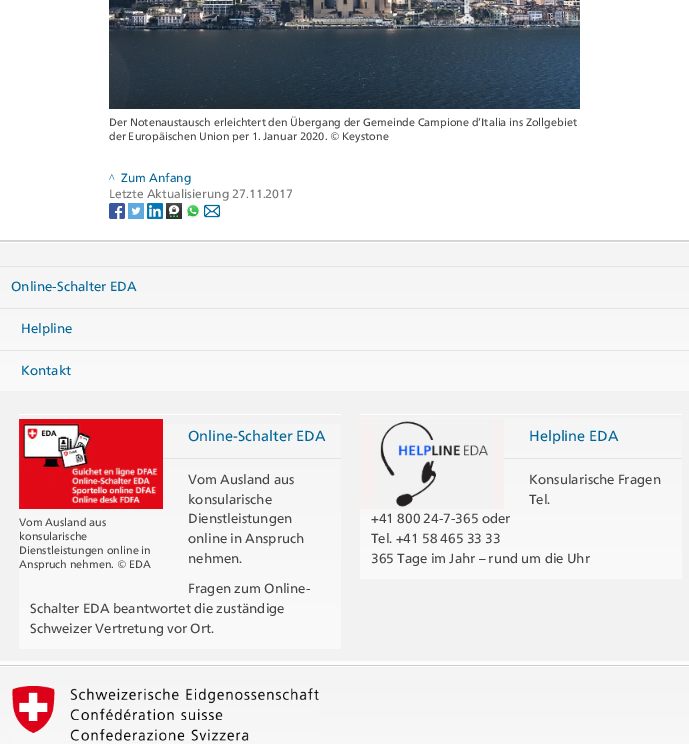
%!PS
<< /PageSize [689 744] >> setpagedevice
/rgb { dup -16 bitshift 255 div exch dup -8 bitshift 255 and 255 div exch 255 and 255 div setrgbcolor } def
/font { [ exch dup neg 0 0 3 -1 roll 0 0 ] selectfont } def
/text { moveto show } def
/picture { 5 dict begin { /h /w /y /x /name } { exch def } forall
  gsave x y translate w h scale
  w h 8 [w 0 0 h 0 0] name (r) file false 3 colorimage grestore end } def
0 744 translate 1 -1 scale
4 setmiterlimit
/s1 { /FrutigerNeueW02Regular-Regular 10.8 font 16#454545 rgb } def
/s2 { /LiberationSerif-Regular 12 font 16#006699 rgb } def
/s3 { /FrutigerNeueW02Regular-Regular 12 font 16#006699 rgb } def
/s4 { /FrutigerNeueW02Regular-Regular 12 font 16#757575 rgb } def
/s5 { /FrutigerNeueW02Regular-Regular 13.25 font 16#006699 rgb } def
/s6 { /FrutigerNeueW02Regular-Regular 14.5 font 16#006699 rgb } def
/s7 { /FrutigerNeueW02Regular-Regular 13.25 font 16#454545 rgb } def
16#FFFFFF rgb
0 0 689 744 rectfill
(pic1.raw) 109 0 471 109 picture
s1
(Der Notenaustausch erleichtert den Übergang der Gemeinde Campione d’Italia ins Zollgebiet) 109 126 text
(der Europäischen Union per 1. Januar 2020. © Keystone) 109 140 text
s2
(^) 109 182 text
s3
(Zum Anfang) 121 182 text
s4
(Letzte Aktualisierung 27.11.2017) 109 198 text
(pic2.raw) 109 203 16 16 picture
(pic3.raw) 128 203 16 16 picture
(pic4.raw) 147 203 16 16 picture
(pic5.raw) 166 203 16 16 picture
(pic6.raw) 186 204 14 14 picture
(pic7.raw) 204 204 16 14 picture
16#F2F2F2 rgb
0 391 689 270 rectfill
16#D5D5D5 rgb
0 240 689 2 rectfill
gsave 0 243 moveto 689 243 lineto 689 391 lineto 0 391 lineto closepath clip newpath
<< /ShadingType 2 /ColorSpace /DeviceRGB /Coords [345 242 345 391] /Extend [true true] /Function << /FunctionType 2 /Domain [0 1] /C0 [0.957 0.957 0.957] /C1 [0.98 0.98 0.98] /N 1 >> >> shfill grestore
16#E3E3E3 rgb
0 266 689 1 rectfill
s5
(Online-Schalter EDA) 11 291 text
16#E3E3E3 rgb
0 308 689 1 rectfill
s5
(Helpline) 21 333 text
16#E3E3E3 rgb
0 350 689 1 rectfill
s5
(Kontakt) 21 375 text
gsave 19 424 moveto 341 424 lineto 341 649 lineto 19 649 lineto closepath clip newpath
<< /ShadingType 2 /ColorSpace /DeviceRGB /Coords [180 403 180 649] /Extend [true true] /Function << /FunctionType 2 /Domain [0 1] /C0 [0.957 0.957 0.957] /C1 [0.98 0.98 0.98] /N 1 >> >> shfill grestore
16#FFFFFF rgb
19 414 322 1 rectfill
16#E3E3E3 rgb
163 458 178 1 rectfill
s6
(Online-Schalter EDA) 188 441 text
(pic8.raw) 19 419 144 90 picture
s1
(Vom Ausland aus) 19 526 text
(konsularische) 19 540 text
(Dienstleistungen online in) 19 554 text
(Anspruch nehmen. © EDA) 19 568 text
s7
(Vom Ausland aus) 188 484 text
(konsularische) 188 504 text
(Dienstleistungen) 188 523 text
(online in Anspruch) 188 543 text
(nehmen.) 188 563 text
(Fragen zum Online-) 188 593 text
(Schalter EDA beantwortet die zuständige) 30 613 text
(Schweizer Vertretung vor Ort.) 30 633 text
gsave 360 418 moveto 682 418 lineto 682 579 lineto 360 579 lineto closepath clip newpath
<< /ShadingType 2 /ColorSpace /DeviceRGB /Coords [521 403 521 579] /Extend [true true] /Function << /FunctionType 2 /Domain [0 1] /C0 [0.957 0.957 0.957] /C1 [0.98 0.98 0.98] /N 1 >> >> shfill grestore
(pic9.raw) 360 419 144 90 picture
16#FFFFFF rgb
360 414 322 1 rectfill
16#E3E3E3 rgb
504 458 178 1 rectfill
s6
(Helpline EDA) 529 441 text
s7
(Konsularische Fragen) 529 484 text
(Tel.) 529 504 text
(+41 800 24-7-365 oder) 371 523 text
(Tel. +41 58 465 33 33) 371 543 text
(365 Tage im Jahr – rund um die Uhr) 371 563 text
16#FCFCFC rgb
0 661 689 4 rectfill
16#CCCCCC rgb
0 665 689 1 rectfill
gsave 0 667 moveto 689 667 lineto 689 744 lineto 0 744 lineto closepath clip newpath
<< /ShadingType 2 /ColorSpace /DeviceRGB /Coords [345 666 345 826] /Extend [true true] /Function << /FunctionType 2 /Domain [0 1] /C0 [0.957 0.957 0.957] /C1 [0.98 0.98 0.98] /N 1 >> >> shfill grestore
(pic10.raw) 12 686 307 55 picture
showpage
